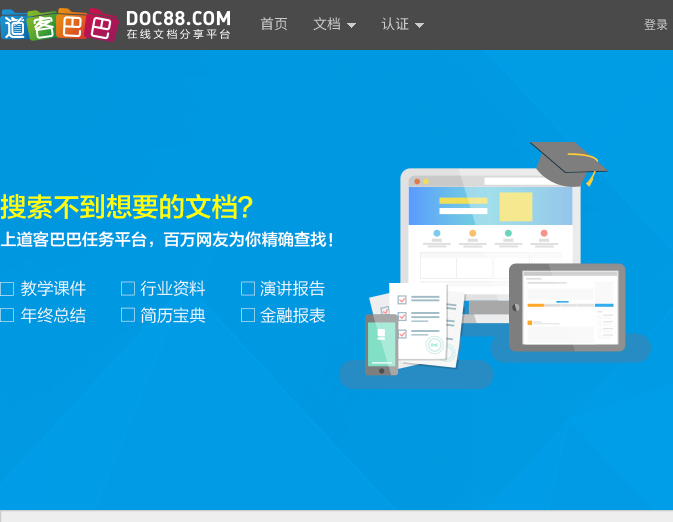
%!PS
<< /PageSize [673 522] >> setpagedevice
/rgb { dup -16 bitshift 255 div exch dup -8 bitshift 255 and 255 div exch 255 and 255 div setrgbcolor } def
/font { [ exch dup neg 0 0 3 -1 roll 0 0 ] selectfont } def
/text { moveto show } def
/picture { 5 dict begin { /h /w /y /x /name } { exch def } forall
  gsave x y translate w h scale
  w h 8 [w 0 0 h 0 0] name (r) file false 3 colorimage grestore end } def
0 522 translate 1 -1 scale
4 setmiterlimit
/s1 { /NotoSansCJKSC-Regular 14 font 16#CCCCCC rgb } def
/s2 { /NotoSansCJKSC-Regular 12 font 16#CCCCCC rgb } def
16#FFFFFF rgb
0 0 673 522 rectfill
16#4A4A4A rgb
0 0 673 50 rectfill
(pic1.raw) 0 8 230 34 picture
s1
(首页) 260 29 text
(pic2.raw) 347 23 9 5 picture
(文档) 313 29 text
(pic2.raw) 415 23 9 5 picture
(认证) 381 29 text
s2
(登录) 644 29 text
(pic3.raw) 0 50 673 460 picture
16#EEEEEE rgb
0.5 510.5 moveto 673.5 510.5 lineto 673.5 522.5 lineto 0.5 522.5 lineto closepath gsave fill grestore
16#CCCCCC rgb
stroke
showpage
